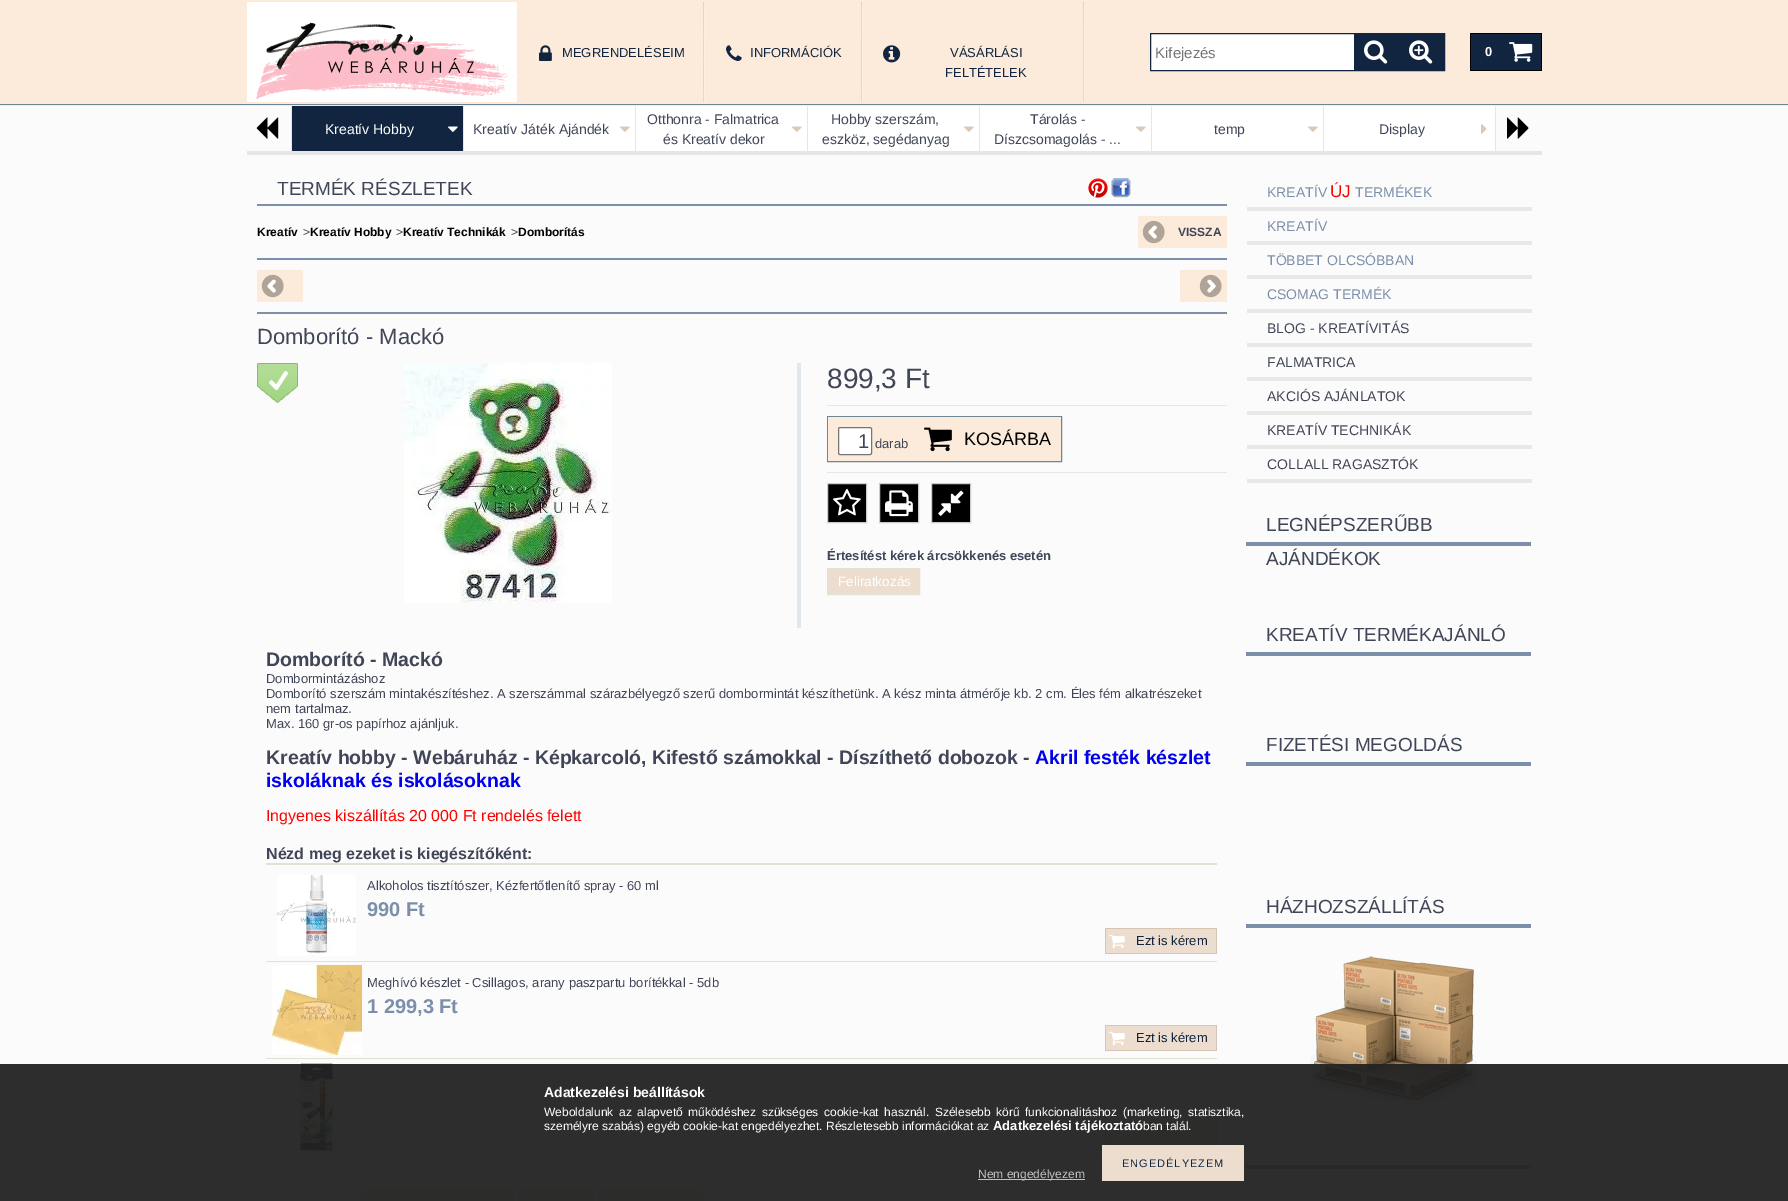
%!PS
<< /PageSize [1788 1201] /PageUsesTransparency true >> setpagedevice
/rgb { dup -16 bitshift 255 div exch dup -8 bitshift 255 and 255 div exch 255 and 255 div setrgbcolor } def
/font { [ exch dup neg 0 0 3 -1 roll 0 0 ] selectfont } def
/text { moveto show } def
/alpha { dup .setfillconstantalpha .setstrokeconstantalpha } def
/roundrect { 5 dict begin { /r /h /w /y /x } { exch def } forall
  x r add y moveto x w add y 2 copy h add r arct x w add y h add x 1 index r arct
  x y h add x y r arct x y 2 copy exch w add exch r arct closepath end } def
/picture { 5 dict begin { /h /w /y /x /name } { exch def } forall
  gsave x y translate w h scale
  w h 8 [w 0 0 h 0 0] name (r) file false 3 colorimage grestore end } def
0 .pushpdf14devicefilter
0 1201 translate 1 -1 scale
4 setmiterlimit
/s1 { /LiberationSans-Regular 13 font 16#112540 rgb } def
/s2 { /LiberationSans-Regular 15 font 16#757575 rgb } def
/s3 { /LiberationSans-Bold 13 font 16#FFFFFF rgb } def
/s4 { /LiberationSans-Regular 14 font 16#FFFFFF rgb } def
/s5 { /LiberationSans-Regular 14 font 16#414558 rgb } def
/s6 { /LiberationSans-Regular 19 font 16#414558 rgb } def
/s7 { /LiberationSans-Bold 12 font 16#000000 rgb } def
/s8 { /LiberationSans-Regular 12 font 16#414558 rgb } def
/s9 { /LiberationSans-Bold 12 font 16#414558 rgb } def
/s10 { /LiberationSans-Regular 22 font 16#414558 rgb } def
/s11 { /LiberationSans-Regular 28 font 16#414558 rgb } def
/s12 { /LiberationSans-Regular 20 font 16#414558 rgb } def
/s13 { /LiberationSans-Regular 13 font 16#414558 rgb } def
/s14 { /LiberationSans-Regular 18 font 16#000000 rgb } def
/s15 { /LiberationSans-Bold 13 font 16#414558 rgb } def
/s16 { /LiberationSans-Regular 13.5 font 16#FFFFFF rgb } def
/s17 { /LiberationSans-Bold 19.5 font 16#414558 rgb } def
/s18 { /LiberationSans-Bold 19.5 font 16#0000EE rgb } def
/s19 { /LiberationSans-Regular 16 font 16#FF0000 rgb } def
/s20 { /LiberationSans-Bold 16 font 16#414558 rgb } def
/s21 { /LiberationSans-Bold 20 font 16#7B8FAA rgb } def
/s22 { /LiberationSans-Regular 14 font 16#7B8FAA rgb } def
/s23 { /LiberationSans-Regular 17 font 16#FF0000 rgb } def
/s24 { /LiberationSans-Bold 14 font 16#FFFFFF rgb } def
/s25 { /LiberationSans-Regular 12 font 16#FFFFFF rgb } def
/s26 { /LiberationSans-Regular 12 font 16#C0C0C0 rgb } def
16#FBFBFB rgb
0 0 1788 1201 rectfill
16#FCEBDB rgb
0 0 1788 106 rectfill
16#6D8696 rgb
0 104 1788 1 rectfill
(pic1.raw) 247 2 270 100 picture
(pic2.raw) 703 2 2 100 picture
(pic3.raw) 539 45 13 16 picture
s1
(MEGRENDELÉSEIM) 562 57 text
(pic2.raw) 861 2 2 100 picture
(pic4.raw) 726 45 16 16 picture
(INFORMÁCIÓK) 750 57 text
(pic2.raw) 1083 2 2 100 picture
(pic5.raw) 883 45 18 18 picture
(VÁSÁRLÁSI) 950 57 text
(FELTÉTELEK) 945 77 text
16#FFFFFF rgb
1151 34 203 36 rectfill
16#112540 rgb
1150.5 33.5 294 37 rectstroke
s2
(Kifejezés) 1155 58 text
16#112540 rgb
1354 34 90 36 rectfill
(pic6.raw) 1364 40 24 24 picture
(pic7.raw) 1409 40 24 24 picture
1471 34 70 36 rectfill
16#000000 rgb
1470 33 72 1 rectfill
1470 70 35 1 rectfill
1470 33 1 38 rectfill
s3
(0) 1485 56 text
16#000000 rgb
1541 33 1 38 rectfill
1505 70 37 1 rectfill
(pic8.raw) 1509 42 24 20 picture
16#E1E8ED rgb
291 106 1 45 rectfill
(pic9.raw) 256 117 23 22 picture
16#112540 rgb
292 106 171 45 rectfill
16#E1E8ED rgb
463 106 1 45 rectfill
s4
(Kreatív Hobby) 325 134 text
(pic10.raw) 448 126 10 6 picture
464 106 171 45 rectfill
16#E1E8ED rgb
635 106 1 45 rectfill
s5
(Kreatív Játék Ajándék) 473 134 text
(pic11.raw) 620 126 10 6 picture
16#FFFFFF rgb
636 106 171 45 rectfill
16#E1E8ED rgb
807 106 1 45 rectfill
s5
(Otthonra - Falmatrica) 647 124 text
(és Kreatív dekor) 663 144 text
(pic11.raw) 792 126 10 6 picture
16#FFFFFF rgb
808 106 171 45 rectfill
16#E1E8ED rgb
979 106 1 45 rectfill
s5
(Hobby szerszám,) 831 124 text
(eszköz, segédanyag) 822 144 text
(pic11.raw) 964 126 10 6 picture
16#FFFFFF rgb
980 106 171 45 rectfill
16#E1E8ED rgb
1151 106 1 45 rectfill
s5
(Tárolás -) 1030 124 text
(Díszcsomagolás - ...) 994 144 text
(pic11.raw) 1136 126 10 6 picture
16#FFFFFF rgb
1152 106 171 45 rectfill
16#E1E8ED rgb
1323 106 1 45 rectfill
s5
(temp) 1214 134 text
(pic11.raw) 1308 126 10 6 picture
16#FFFFFF rgb
1324 106 171 45 rectfill
16#E1E8ED rgb
1495 106 1 45 rectfill
s5
(Display) 1379 134 text
(pic12.raw) 1481 124 6 10 picture
(pic13.raw) 1507 117 22 22 picture
16#E6E6E6 rgb
247 151 1295 4 rectfill
s6
(TERMÉK RÉSZLETEK) 277 195 text
16#7890AA rgb
257 204 970 2 rectfill
s7
(Kreatív) 257 236 text
s8
(>) 303 236 text
s7
(Kreatív Hobby) 310 236 text
s8
(>) 396 236 text
s7
(Kreatív Technikák) 403 236 text
s8
(>) 511 236 text
s7
(Domborítás) 518 236 text
16#FCEBDB rgb
1138 216 89 32 rectfill
(pic14.raw) 1142 220 23 24 picture
s9
(VISSZA) 1178 236 text
16#7890AA rgb
257 258 970 2 rectfill
16#FCEBDB rgb
257 270 46 32 rectfill
(pic14.raw) 261 274 23 24 picture
1180 270 47 32 rectfill
(pic15.raw) 1199 274 23 24 picture
16#7890AA rgb
257 312 970 2 rectfill
(pic16.raw) 1088 178 20 20 picture
(pic17.raw) 1111 178 20 20 picture
s10
(Domborító - Mackó) 257 344 text
(pic18.raw) 257 363 41 40 picture
(pic19.raw) 404 363 208 240 picture
16#E1E8ED rgb
797 363 4 265 rectfill
827 405 400 1 rectfill
s11
(899,3 Ft) 827 388 text
16#E1E8ED rgb
827 472 400 1 rectfill
16#6D8696 rgb
827.5 416.5 234 45 rectstroke
16#FCEBDB rgb
828 417 233 44 rectfill
16#FFFFFF rgb
838.5 427.5 33 27 1.5 roundrect gsave fill grestore
16#767676 rgb
stroke
s12
(1) 858 448 text
s13
(darab) 875 448 text
(pic20.raw) 924 427 28 25 picture
s14
(KOSÁRBA) 964 445 text
827.5 483.5 moveto 866.5 483.5 lineto 866.5 522.5 lineto 827.5 522.5 lineto closepath gsave fill grestore
16#CCCCCC rgb
stroke
(pic21.raw) 833 488 28 28 picture
16#000000 rgb
879.5 483.5 moveto 918.5 483.5 lineto 918.5 522.5 lineto 879.5 522.5 lineto closepath gsave fill grestore
16#CCCCCC rgb
stroke
(pic22.raw) 885 490 28 27 picture
16#000000 rgb
931.5 483.5 moveto 970.5 483.5 lineto 970.5 522.5 lineto 931.5 522.5 lineto closepath gsave fill grestore
16#CCCCCC rgb
stroke
(pic23.raw) 938 490 26 26 picture
s15
(Értesítést kérek árcsökkenés esetén) 827 560 text
16#ECDDCE rgb
827.5 568.5 moveto 919.5 568.5 lineto 919.5 594.5 lineto 827.5 594.5 lineto closepath gsave fill grestore
16#E1E2D0 rgb
stroke
s16
(Feliratkozás) 838 586 text
s17
(Domborító - Mackó) 266 666 text
s13
(Dombormintázáshoz) 266 683 text
(Domborító szerszám mintakészítéshez. A szerszámmal szárazbélyegző szerű dombormintát készíthetünk. A kész minta átmérője kb. 2 cm. Éles fém alkatrészeket) 266 698 text
(nem tartalmaz.) 266 713 text
(Max. 160 gr-os papírhoz ajánljuk.) 266 728 text
s17
(Kreatív hobby - Webáruház - Képkarcoló, Kifestő számokkal - Díszíthető dobozok -) 266 764 text
s18
(Akril festék készlet) 1035 764 text
(iskoláknak és iskolásoknak) 266 787 text
s19
(Ingyenes kiszállítás 20 000 Ft rendelés felett) 266 821 text
16#E1E2D0 rgb
266 863 951 2 rectfill
s20
(Nézd meg ezeket is kiegészítőként:) 266 859 text
16#E1E2D0 rgb
266 961 951 1 rectfill
(pic24.raw) 277 875 79 81 picture
s13
(Alkoholos tisztítószer, Kézfertőtlenítő spray - 60 ml) 367 890 text
s21
(990 Ft) 367 916 text
16#D7C5B4 rgb
1105 928 112 26 rectfill
16#ECDDCE rgb
1106 929 110 24 rectfill
(pic25.raw) 1109 934 16 15 picture
s1
(Ezt is kérem) 1136 945 text
16#E1E2D0 rgb
266 1058 951 1 rectfill
(pic26.raw) 272 965 90 90 picture
s13
(Meghívó készlet - Csillagos, arany paszpartu borítékkal - 5db) 367 987 text
s21
(1 299,3 Ft) 367 1013 text
16#D7C5B4 rgb
1105 1025 112 26 rectfill
16#ECDDCE rgb
1106 1026 110 24 rectfill
(pic25.raw) 1109 1031 16 15 picture
s1
(Ezt is kérem) 1136 1042 text
16#E1E2D0 rgb
266 1155 836 1 rectfill
(pic27.raw) 298 1062 36 89 picture
16#D7C5B4 rgb
1105 1122 112 23 rectfill
16#ECDDCE rgb
1106 1123 110 22 rectfill
(pic25.raw) 1109 1128 16 15 picture
16#FEF9F5 rgb
262 1188 92 13 rectfill
16#E1E2D0 rgb
261 1187 94 1 rectfill
354 1187 1 14 rectfill
261 1187 1 14 rectfill
16#ECDDCE rgb
361.5 1187.5 moveto 512.5 1187.5 lineto 512.5 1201.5 lineto 361.5 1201.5 lineto closepath gsave fill grestore
16#E1E2D0 rgb
stroke
16#ECDDCE rgb
519.5 1187.5 moveto 592.5 1187.5 lineto 592.5 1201.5 lineto 519.5 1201.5 lineto closepath gsave fill grestore
16#E1E2D0 rgb
stroke
16#ECDDCE rgb
599.5 1187.5 moveto 702.5 1187.5 lineto 702.5 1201.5 lineto 599.5 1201.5 lineto closepath gsave fill grestore
16#E1E2D0 rgb
stroke
16#E8E8E8 rgb
1247 207 285 4 rectfill
s22
(KREATÍV) 1267 197 text
s23
(ÚJ) 1330 197 text
s22
(TERMÉKEK) 1355 197 text
16#E8E8E8 rgb
1247 241 285 4 rectfill
s22
(KREATÍV) 1267 231 text
16#E8E8E8 rgb
1247 275 285 4 rectfill
s22
(TÖBBET OLCSÓBBAN) 1267 265 text
16#E8E8E8 rgb
1247 309 285 4 rectfill
s22
(CSOMAG TERMÉK) 1267 299 text
16#E8E8E8 rgb
1247 343 285 4 rectfill
s5
(BLOG - KREATÍVITÁS) 1267 333 text
16#E8E8E8 rgb
1247 377 285 4 rectfill
s5
(FALMATRICA) 1267 367 text
16#E8E8E8 rgb
1247 411 285 4 rectfill
s5
(AKCIÓS AJÁNLATOK) 1267 401 text
16#E8E8E8 rgb
1247 445 285 4 rectfill
s5
(KREATÍV TECHNIKÁK) 1267 435 text
16#E8E8E8 rgb
1247 479 285 4 rectfill
s5
(COLLALL RAGASZTÓK) 1267 469 text
s6
(LEGNÉPSZERŰBB) 1266 531 text
(AJÁNDÉKOK) 1266 565 text
16#7B8FAA rgb
1246 542 285 4 rectfill
s6
(KREATÍV TERMÉKAJÁNLÓ) 1266 641 text
16#7B8FAA rgb
1246 652 285 4 rectfill
s6
(FIZETÉSI MEGOLDÁS) 1266 751 text
16#7B8FAA rgb
1246 762 285 4 rectfill
s6
(HÁZHOZSZÁLLÍTÁS) 1266 913 text
16#7B8FAA rgb
1246 924 285 4 rectfill
(pic28.raw) 1309 956 170 153 picture
1246 1165 285 4 rectfill
0.95 alpha
16#222222 rgb
0 1064 1788 137 rectfill
1 alpha
s24
(Adatkezelési beállítások) 544 1097 text
/LiberationSans-Regular 12 font
544 1116 moveto 2.25 0 32 (Weboldalunk az alapvető működéshez szükséges cookie-kat használ. Szélesebb körű funkcionalitáshoz \(marketing, statisztika,) widthshow
(személyre szabás\) egyéb cookie-kat engedélyezhet. Részletesebb információkat az) 544 1130 text
s3
(Adatkezelési tájékoztató) 993 1130 text
s25
(ban talál.) 1143 1130 text
16#ECDDCE rgb
1102 1145 142 36 rectfill
/LiberationSans-Regular 11 font
16#112540 rgb
1122 1167 moveto 1 0 (ENGEDÉLYEZEM) ashow
16#C0C0C0 rgb
978 1179 107 1 rectfill
s26
(Nem engedélyezem) 978 1178 text
.poppdf14devicefilter showpage
